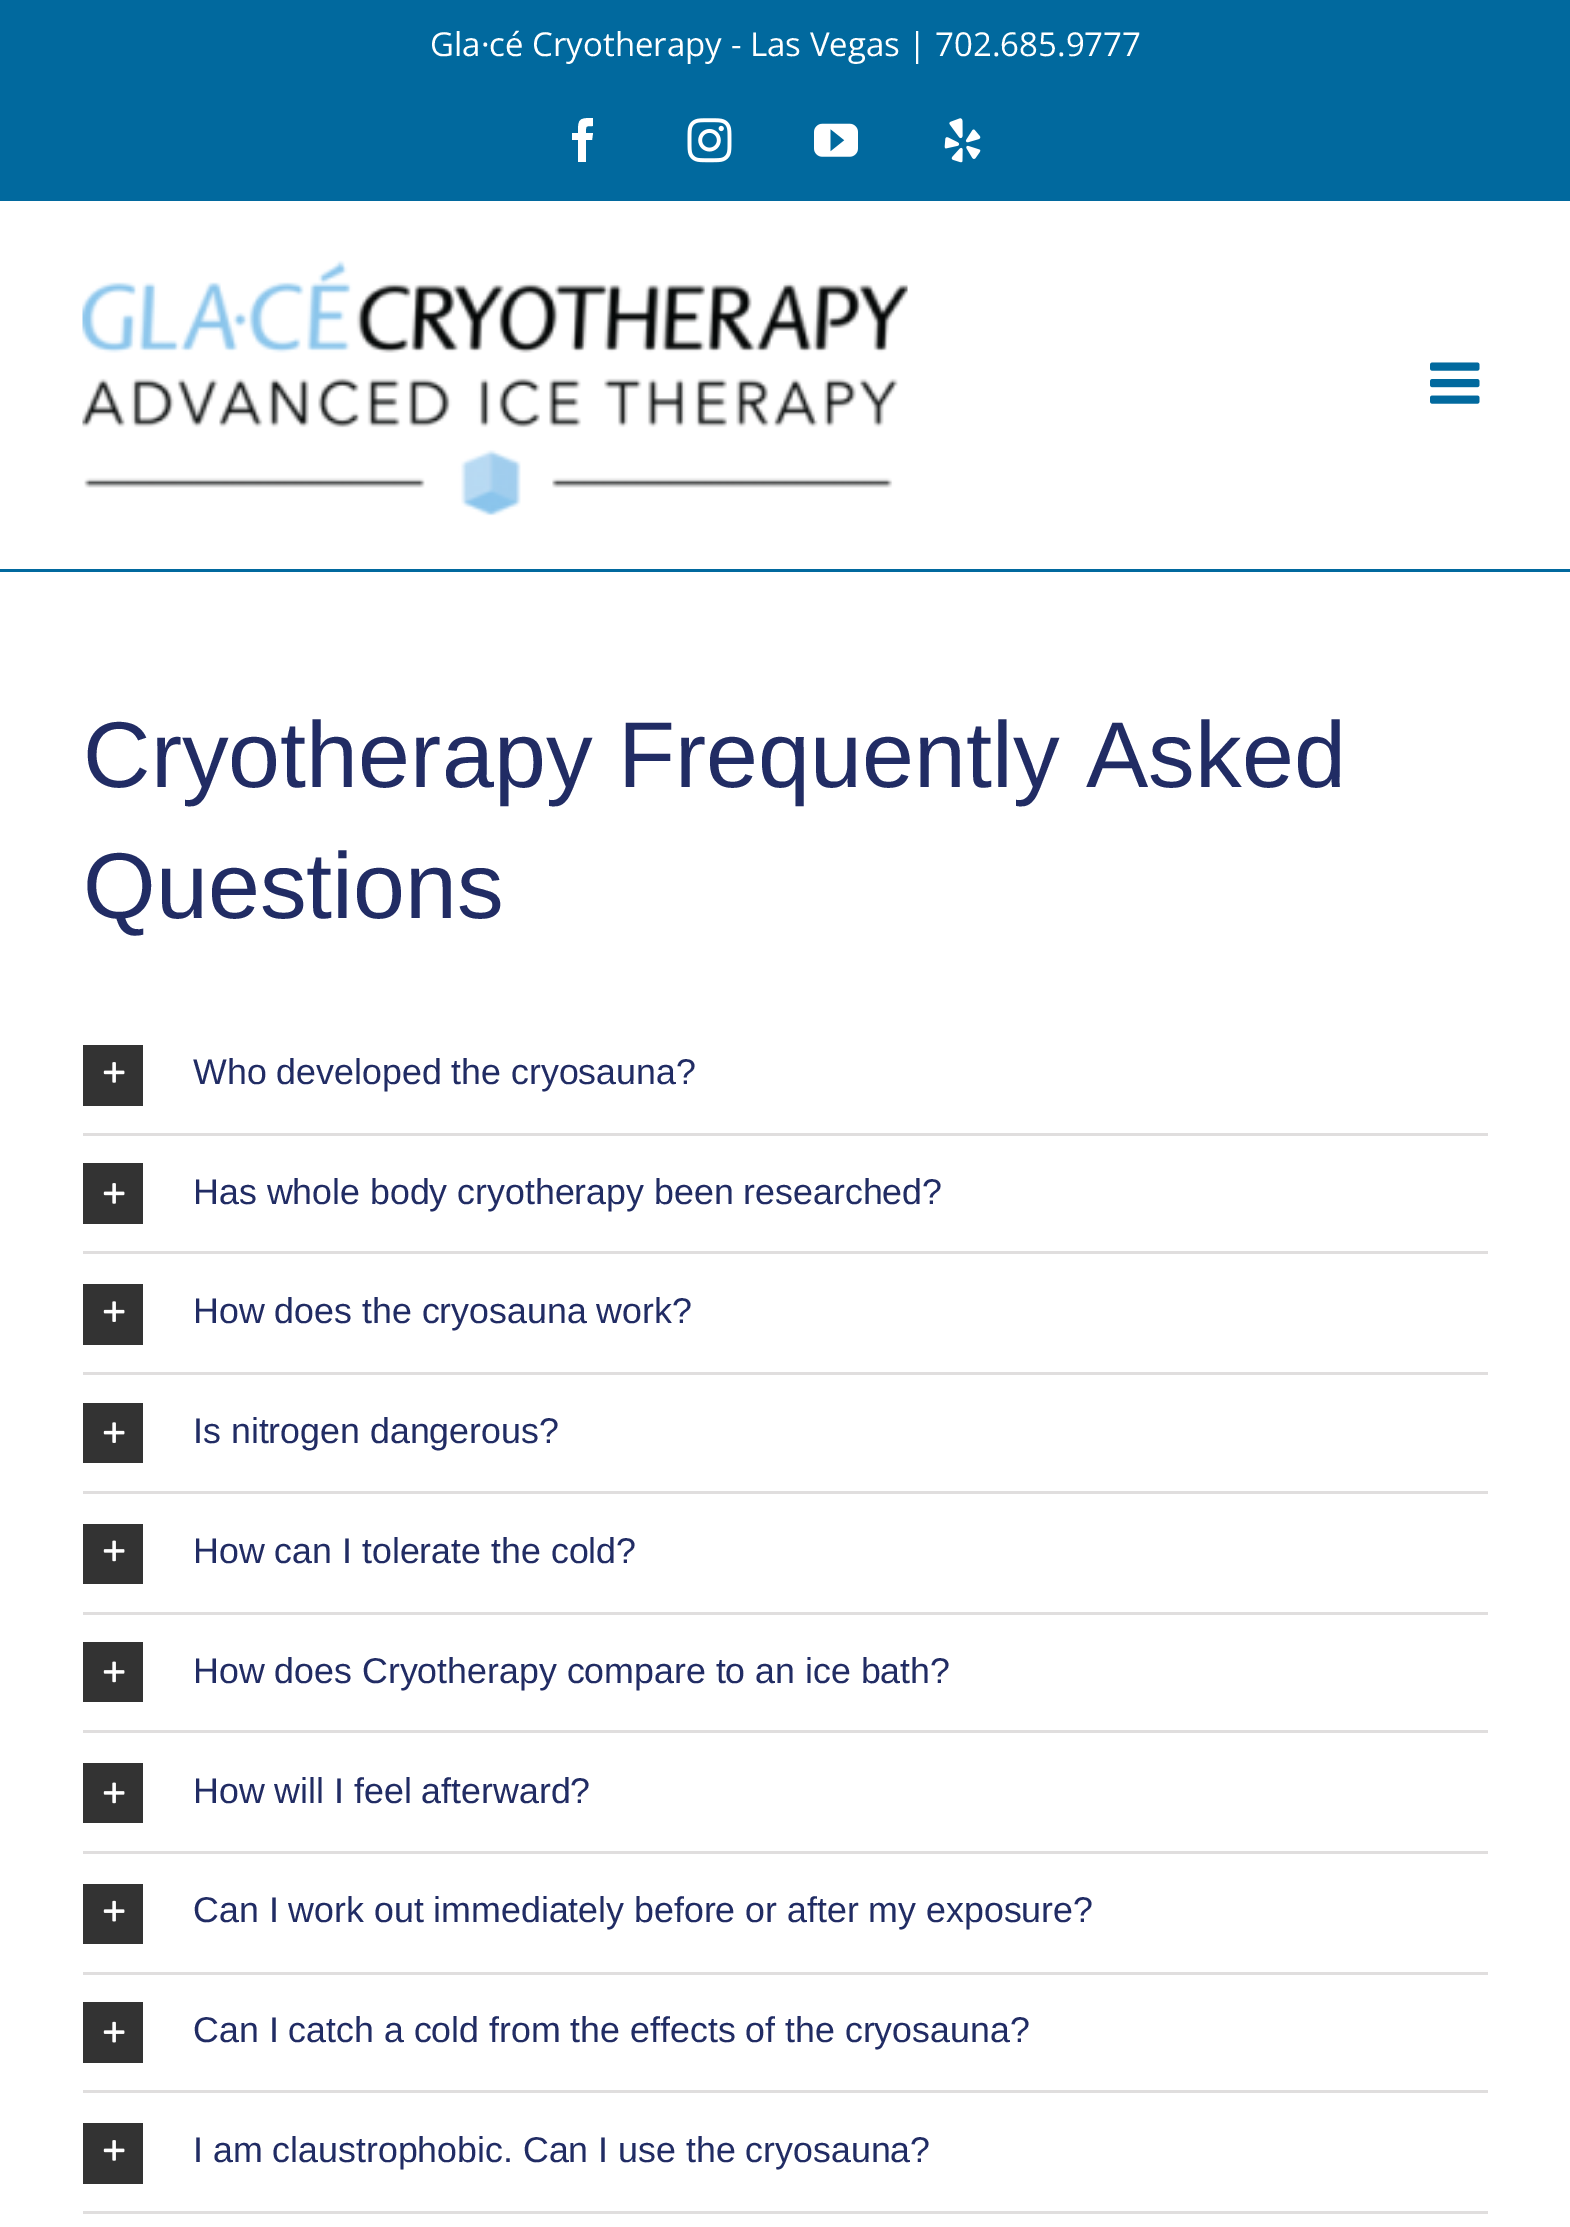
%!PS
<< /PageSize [1570 2227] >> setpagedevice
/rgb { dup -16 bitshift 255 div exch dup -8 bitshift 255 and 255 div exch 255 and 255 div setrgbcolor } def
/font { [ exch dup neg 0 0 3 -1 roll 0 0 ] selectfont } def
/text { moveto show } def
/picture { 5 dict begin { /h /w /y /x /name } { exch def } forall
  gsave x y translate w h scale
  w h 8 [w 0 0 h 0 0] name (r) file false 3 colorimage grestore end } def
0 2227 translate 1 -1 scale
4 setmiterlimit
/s1 { /OpenSans-Regular 33 font 16#FFFFFF rgb } def
/s2 { /LiberationSans-Regular 93.5 font 16#212C64 rgb } def
/s3 { /LiberationSans-Regular 35.75 font 16#212C64 rgb } def
16#FFFFFF rgb
0 0 1570 2227 rectfill
16#01699E rgb
0 0 1570 201 rectfill
s1
(Gla·cé Cryotherapy - Las Vegas | 702.685.9777) 430 56 text
586 162 moveto 578 162 lineto 578 140 lineto 572 140 lineto 572 133 lineto 578 133 lineto 578 119 579 118 593 118 curveto 593 126 lineto 585 126 586 126 586 133 curveto 593 133 lineto 592 140 lineto 586 140 lineto closepath fill
(pic1.raw) 687 118 45 45 picture
(pic2.raw) 814 123 44 34 picture
(pic3.raw) 944 118 37 45 picture
16#01699E rgb
0 569 1570 3 rectfill
(pic4.raw) 82 260 826 256 picture
(pic5.raw) 1430 362 50 42 picture
s2
(Cryotherapy Frequently Asked) 83 787 text
(Questions) 83 918 text
16#E0DEDE rgb
83 1133 1405 3 rectfill
16#333333 rgb
83 1045 60 61 rectfill
(pic6.raw) 103 1062 22 21 picture
s3
(Who developed the cryosauna?) 193 1084 text
16#E0DEDE rgb
83 1251 1405 3 rectfill
16#333333 rgb
83 1163 60 61 rectfill
(pic6.raw) 103 1183 22 21 picture
s3
(Has whole body cryotherapy been researched?) 193 1204 text
16#E0DEDE rgb
83 1372 1405 3 rectfill
16#333333 rgb
83 1284 60 61 rectfill
(pic7.raw) 103 1301 22 21 picture
s3
(How does the cryosauna work?) 193 1323 text
16#E0DEDE rgb
83 1491 1405 3 rectfill
16#333333 rgb
83 1403 60 60 rectfill
(pic7.raw) 103 1422 22 21 picture
s3
(Is nitrogen dangerous?) 193 1443 text
16#E0DEDE rgb
83 1612 1405 3 rectfill
16#333333 rgb
83 1524 60 60 rectfill
(pic8.raw) 103 1540 22 22 picture
s3
(How can I tolerate the cold?) 193 1563 text
16#E0DEDE rgb
83 1730 1405 3 rectfill
16#333333 rgb
83 1642 60 60 rectfill
(pic8.raw) 103 1661 22 22 picture
s3
(How does Cryotherapy compare to an ice bath?) 193 1683 text
16#E0DEDE rgb
83 1851 1405 3 rectfill
16#333333 rgb
83 1763 60 60 rectfill
(pic8.raw) 103 1782 22 22 picture
s3
(How will I feel afterward?) 193 1803 text
16#E0DEDE rgb
83 1972 1405 3 rectfill
16#333333 rgb
83 1884 60 60 rectfill
(pic9.raw) 103 1900 22 22 picture
s3
(Can I work out immediately before or after my exposure?) 193 1922 text
16#E0DEDE rgb
83 2090 1405 3 rectfill
16#333333 rgb
83 2002 60 61 rectfill
(pic9.raw) 103 2021 22 22 picture
s3
(Can I catch a cold from the effects of the cryosauna?) 193 2042 text
16#E0DEDE rgb
83 2211 1405 3 rectfill
16#333333 rgb
83 2123 60 61 rectfill
(pic6.raw) 103 2140 22 21 picture
s3
(I am claustrophobic. Can I use the cryosauna?) 193 2162 text
showpage
